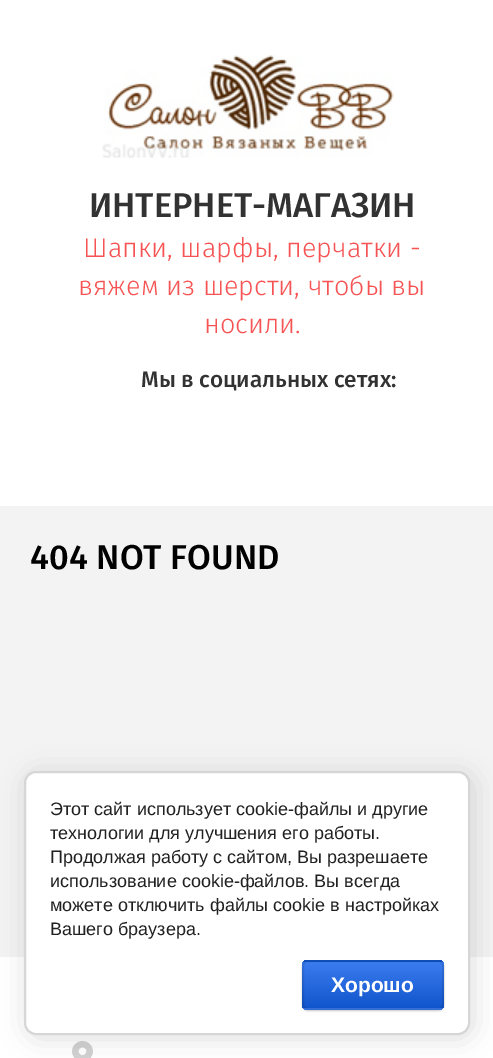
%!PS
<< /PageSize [493 1058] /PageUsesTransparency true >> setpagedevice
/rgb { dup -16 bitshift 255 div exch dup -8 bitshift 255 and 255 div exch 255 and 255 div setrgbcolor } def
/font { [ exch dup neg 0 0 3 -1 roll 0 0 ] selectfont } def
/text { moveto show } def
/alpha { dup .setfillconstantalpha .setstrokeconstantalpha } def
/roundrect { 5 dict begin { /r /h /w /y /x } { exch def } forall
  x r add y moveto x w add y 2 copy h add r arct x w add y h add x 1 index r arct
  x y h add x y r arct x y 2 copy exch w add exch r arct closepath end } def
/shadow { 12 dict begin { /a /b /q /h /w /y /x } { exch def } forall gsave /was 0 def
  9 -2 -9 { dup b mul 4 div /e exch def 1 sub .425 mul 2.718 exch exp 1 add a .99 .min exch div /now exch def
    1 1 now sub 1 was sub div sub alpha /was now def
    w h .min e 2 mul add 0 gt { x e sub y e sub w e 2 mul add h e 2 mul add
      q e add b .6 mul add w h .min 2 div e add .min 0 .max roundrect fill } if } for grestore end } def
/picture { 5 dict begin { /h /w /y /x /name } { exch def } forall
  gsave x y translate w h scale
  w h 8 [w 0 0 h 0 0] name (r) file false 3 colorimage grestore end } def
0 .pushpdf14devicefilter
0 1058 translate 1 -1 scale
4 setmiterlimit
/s1 { /FiraSans-Medium 34.5 font 16#323232 rgb } def
/s2 { /FiraSans-Light 27 font 16#F65454 rgb } def
/s3 { /FiraSans-Medium 22.5 font 16#323232 rgb } def
/s4 { /FiraSans-Medium 34.5 font 16#000000 rgb } def
/s5 { /LiberationSans-Regular 18 font 16#212121 rgb } def
/s6 { /LiberationSans-Bold 21 font 16#FFFFFF rgb } def
16#F3F3F3 rgb
0 0 493 1058 rectfill
16#FFFFFF rgb
0 0 493 506 rectfill
(pic1.raw) 102 55 292 103 picture
s1
(ИНТЕРНЕТ-МАГАЗИН) 89 217 text
s2
(Шапки, шарфы, перчатки -) 83 257 text
(вяжем из шерсти, чтобы вы) 78 295 text
(носили.) 204 333 text
s3
(Мы в социальных сетях:) 141 387 text
s4
(404 NOT FOUND) 30 569 text
16#FFFFFF rgb
0 957 493 101 rectfill
(pic2.raw) 72 1041 21 17 picture
16#000000 rgb
27 774 446 264 12 13.5 0.14 shadow
16#FFFFFF rgb
25 772 444 262 11 roundrect gsave fill grestore
16#D6D6D6 rgb
2 setlinewidth
stroke
s5
(Этот сайт использует cookie-файлы и другие) 50 815 text
(технологии для улучшения его работы.) 50 839 text
(Продолжая работу с сайтом, Вы разрешаете) 50 863 text
(использование cookie-файлов. Вы всегда) 50 887 text
(можете отключить файлы cookie в настройках) 50 911 text
(Вашего браузера.) 50 935 text
16#000000 rgb
302 962 142 49 6 1 0.2 shadow
gsave
302 960 142 50 6 roundrect clip newpath
gsave 302 960 moveto 444 960 lineto 444 962 lineto 302 962 lineto closepath clip newpath
<< /ShadingType 2 /ColorSpace /DeviceRGB /Coords [373 915 373 962] /Extend [true true] /Function << /FunctionType 2 /Domain [0 1] /C0 [0.231 0.486 0.937] /C1 [0.067 0.333 0.8] /N 1 >> >> shfill grestore
gsave 302 962 moveto 444 962 lineto 444 1008 lineto 302 1008 lineto closepath clip newpath
<< /ShadingType 2 /ColorSpace /DeviceRGB /Coords [373 962 373 1008] /Extend [true true] /Function << /FunctionType 2 /Domain [0 1] /C0 [0.231 0.486 0.937] /C1 [0.067 0.333 0.8] /N 1 >> >> shfill grestore
gsave 302 1008 moveto 444 1008 lineto 444 1010 lineto 302 1010 lineto closepath clip newpath
<< /ShadingType 2 /ColorSpace /DeviceRGB /Coords [373 1008 373 1055] /Extend [true true] /Function << /FunctionType 2 /Domain [0 1] /C0 [0.231 0.486 0.937] /C1 [0.067 0.333 0.8] /N 1 >> >> shfill grestore
grestore
0.1 alpha
303 961 140 48 5 roundrect stroke
1 alpha
s6
(Хорошо) 331 992 text
.poppdf14devicefilter showpage
